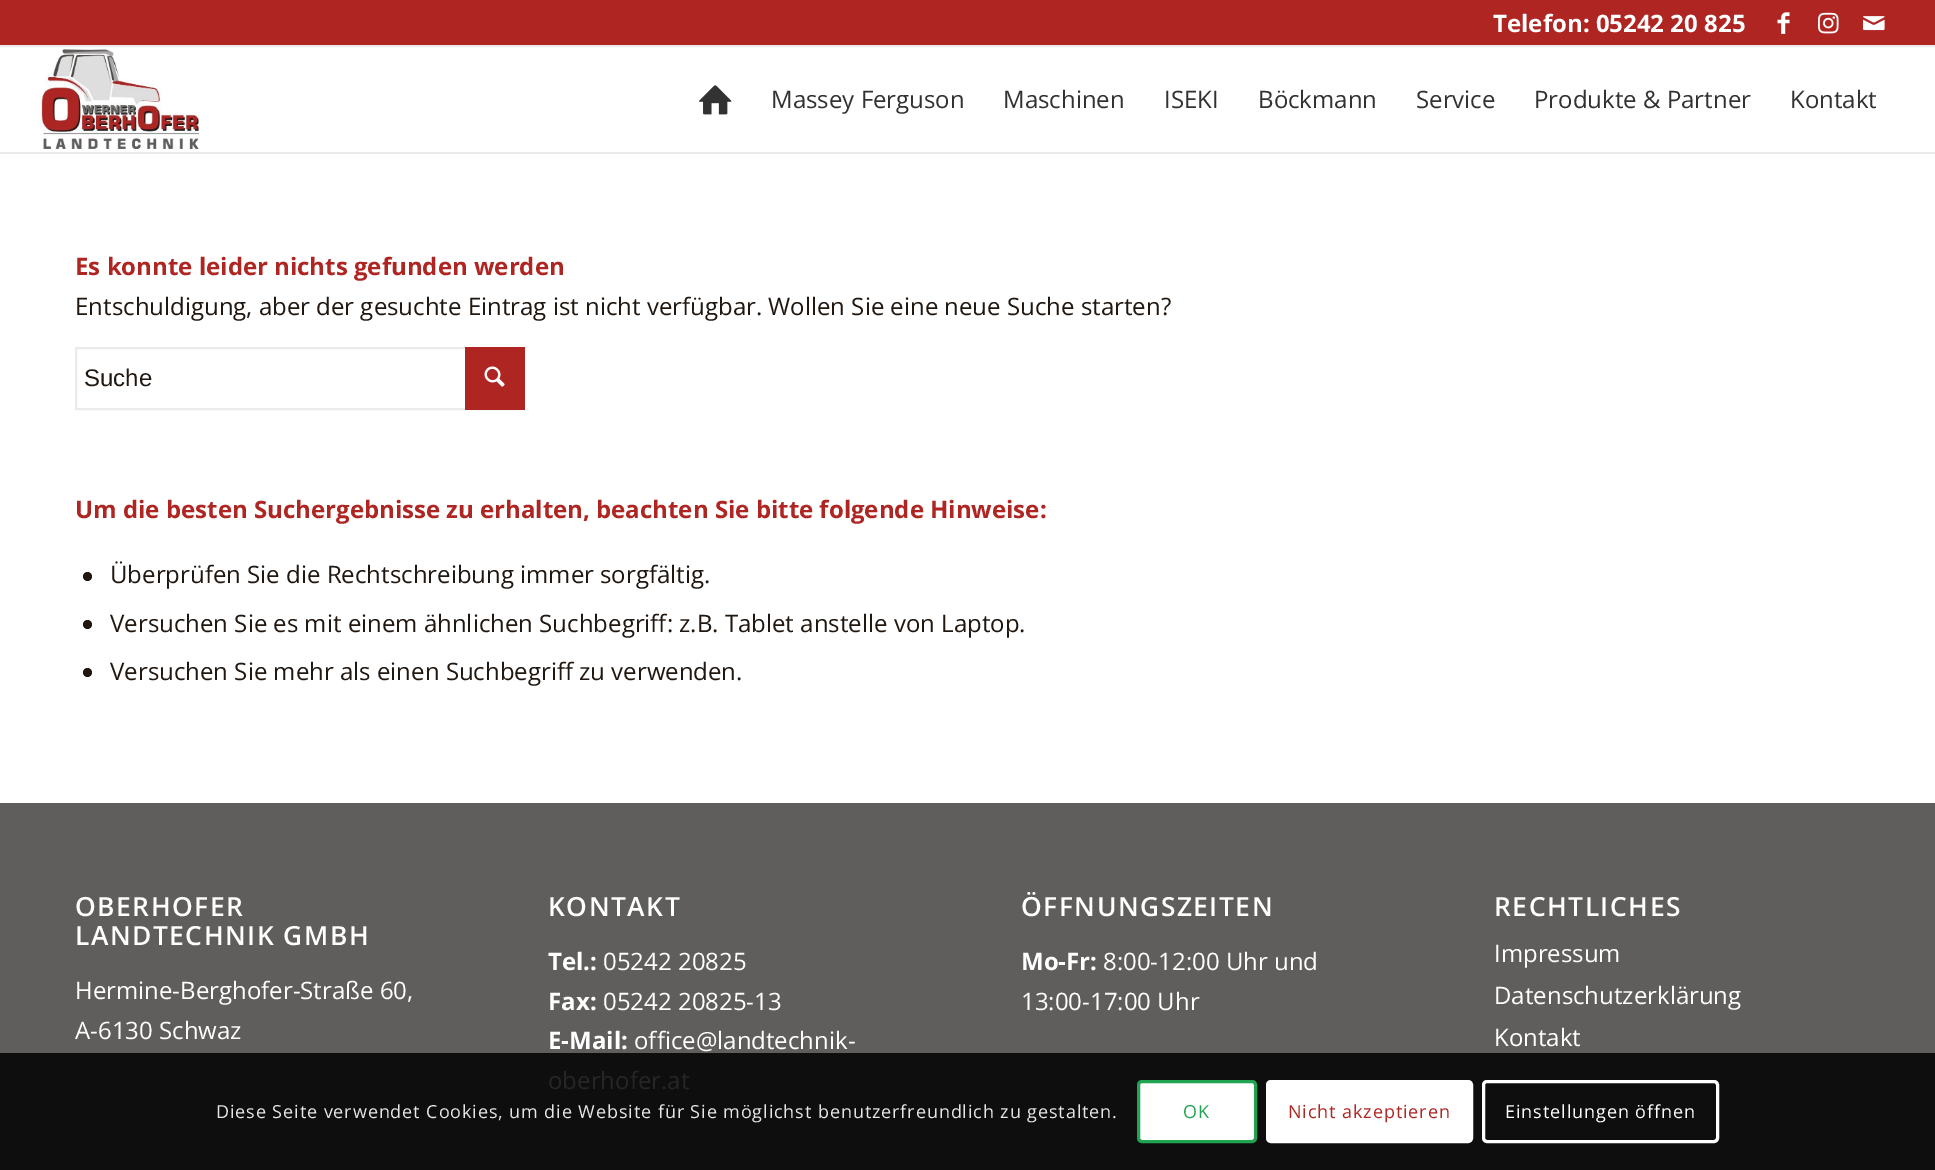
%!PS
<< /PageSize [1935 1170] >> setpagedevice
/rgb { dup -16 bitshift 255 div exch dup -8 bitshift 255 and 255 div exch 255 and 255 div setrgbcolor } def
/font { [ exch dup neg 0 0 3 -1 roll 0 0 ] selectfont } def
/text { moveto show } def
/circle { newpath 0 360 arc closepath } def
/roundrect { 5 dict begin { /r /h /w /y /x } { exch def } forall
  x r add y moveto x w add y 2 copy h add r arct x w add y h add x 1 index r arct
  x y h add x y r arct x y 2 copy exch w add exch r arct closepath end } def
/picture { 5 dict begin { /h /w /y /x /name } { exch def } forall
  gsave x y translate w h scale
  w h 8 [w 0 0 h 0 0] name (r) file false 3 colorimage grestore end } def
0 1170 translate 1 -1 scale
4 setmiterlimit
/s1 { /OpenSans-Bold 24 font 16#FFFFFF rgb } def
/s2 { /OpenSans-Regular 24 font 16#323232 rgb } def
/s3 { /OpenSans-Bold 24 font 16#AF2522 rgb } def
/s4 { /OpenSans-Regular 24 font 16#201710 rgb } def
/s5 { /LiberationSans-Regular 24 font 16#201710 rgb } def
/s6 { /OpenSans-Regular 24 font 16#FFFFFF rgb } def
/s7 { /OpenSans-Regular 24 font 16#262626 rgb } def
16#FFFFFF rgb
0 0 1935 1170 rectfill
16#AF2522 rgb
0 0 1935 45 rectfill
16#EBEBEB rgb
0 45 1935 2 rectfill
s1
(Telefon: 05242 20 825) 1493 32 text
(pic1.raw) 1777 12 13 22 picture
(pic2.raw) 1818 12 21 22 picture
(pic3.raw) 1863 16 22 15 picture
16#EBEBEB rgb
0 152 1935 2 rectfill
(pic4.raw) 39 47 164 102 picture
(pic5.raw) 699 85 33 30 picture
s2
(Massey Ferguson) 771 108 text
(Maschinen) 1003 108 text
(ISEKI) 1164 108 text
(Böckmann) 1258 108 text
(Service) 1416 108 text
(Produkte & Partner) 1534 108 text
(Kontakt) 1790 108 text
s3
(Es konnte leider nichts gefunden werden) 75 275 text
s4
(Entschuldigung, aber der gesuchte Eintrag ist nicht verfügbar. Wollen Sie eine neue Suche starten?) 75 315 text
16#EBEBEB rgb
2 setlinewidth
76 348 448 61 rectstroke
s5
(Suche) 84 386 text
16#AF2522 rgb
465 347 60 63 rectfill
(pic6.raw) 484 366 21 21 picture
s3
(Um die besten Suchergebnisse zu erhalten, beachten Sie bitte folgende Hinweise:) 75 518 text
16#201710 rgb
87.5 576.5 4.5 circle fill
s4
(Überprüfen Sie die Rechtschreibung immer sorgfältig.) 110 583 text
87.5 624.5 4.5 circle fill
(Versuchen Sie es mit einem ähnlichen Suchbegriff: z.B. Tablet anstelle von Laptop.) 110 632 text
87.5 672.5 4.5 circle fill
(Versuchen Sie mehr als einen Suchbegriff zu verwenden.) 110 680 text
16#5F5E5C rgb
0 803 1935 250 rectfill
16#0E0E0E rgb
0 1053 1935 117 rectfill
/OpenSans-SemiBold 26.4 font
16#FFFFFF rgb
75 916 moveto 1.5 0 (OBERHOFER) ashow
75 945 moveto 1.5 0 (LANDTECHNIK GMBH) ashow
s6
(Hermine-Berghofer-Straße 60,) 75 999 text
(A-6130 Schwaz) 75 1039 text
/OpenSans-SemiBold 26.4 font
548 916 moveto 1.5 0 (KONTAKT) ashow
s1
(Tel.:) 548 970 text
s6
(05242 20825) 603 970 text
s1
(Fax:) 548 1010 text
s6
(05242 20825-13) 603 1010 text
s1
(E-Mail:) 548 1049 text
s6
(office@landtechnik-) 634 1049 text
s7
(oberhofer.at) 548 1089 text
/OpenSans-SemiBold 26.4 font
16#FFFFFF rgb
1021 916 moveto 1.5 0 (ÖFFNUNGSZEITEN) ashow
s1
(Mo-Fr:) 1021 970 text
s6
(8:00-12:00 Uhr und) 1103 970 text
(13:00-17:00 Uhr) 1021 1010 text
/OpenSans-SemiBold 26.4 font
1494 916 moveto 1.5 0 (RECHTLICHES) ashow
s6
(Impressum) 1494 962 text
(Datenschutzerklärung) 1494 1004 text
(Kontakt) 1494 1046 text
/OpenSans-Regular 18 font
16#E7E7E7 rgb
216 1118 moveto 0.9 0 (Diese Seite verwendet Cookies, um die Website für Sie möglichst benutzerfreundlich zu gestalten.) ashow
16#FFFFFF rgb
1138.5 1081.5 117 60 3.5 roundrect gsave fill grestore
16#21A451 rgb
3 setlinewidth
stroke
1183 1118 moveto 0.9 0 (OK) ashow
16#FFFFFF rgb
1267.5 1081.5 204 60 3.5 roundrect gsave fill grestore
stroke
16#AF2522 rgb
1288 1118 moveto 0.9 0 (Nicht akzeptieren) ashow
16#FFFFFF rgb
1483.5 1081.5 234 60 3.5 roundrect stroke
1505 1118 moveto 0.9 0 (Einstellungen öffnen) ashow
showpage
